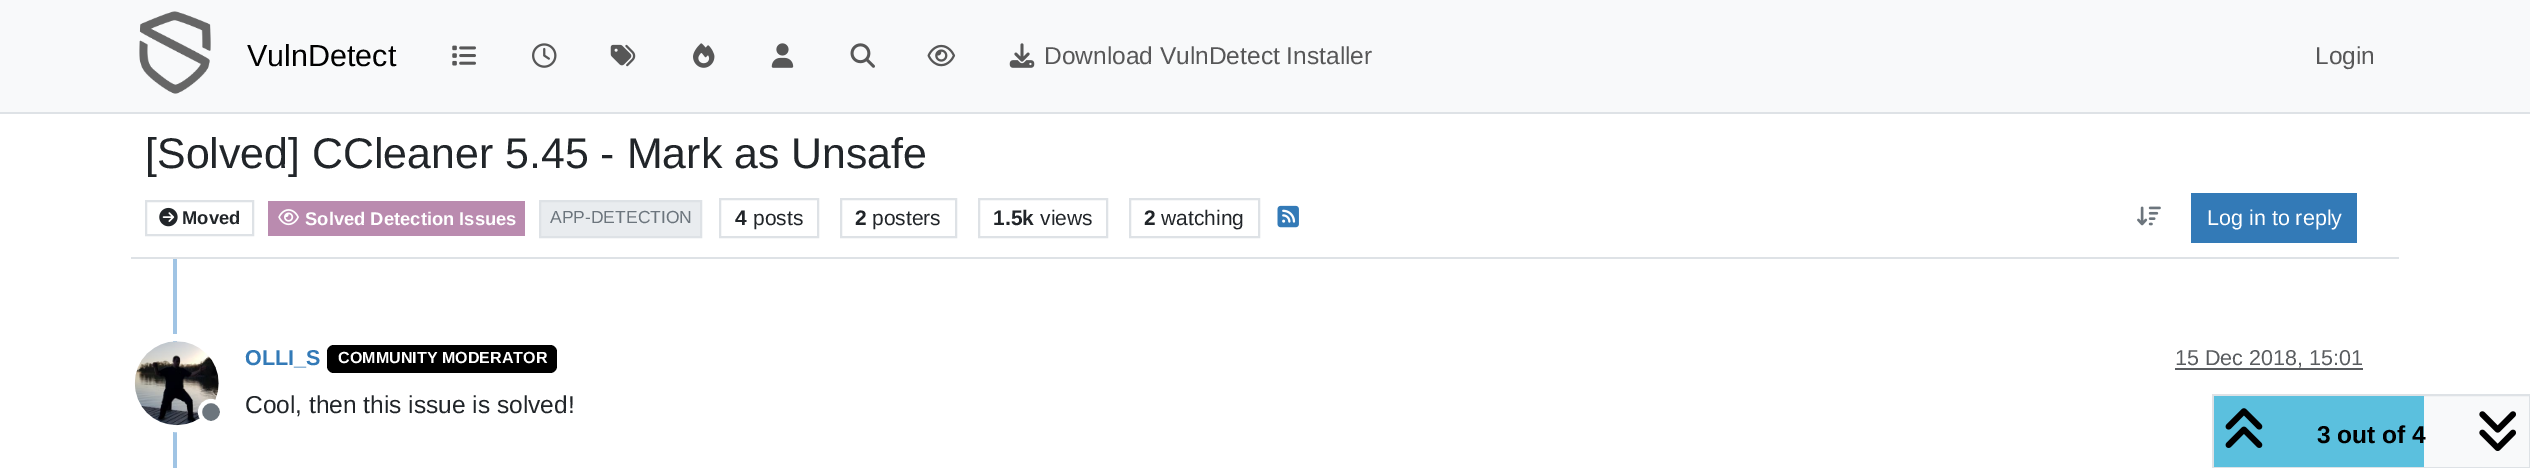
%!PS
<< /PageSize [2530 468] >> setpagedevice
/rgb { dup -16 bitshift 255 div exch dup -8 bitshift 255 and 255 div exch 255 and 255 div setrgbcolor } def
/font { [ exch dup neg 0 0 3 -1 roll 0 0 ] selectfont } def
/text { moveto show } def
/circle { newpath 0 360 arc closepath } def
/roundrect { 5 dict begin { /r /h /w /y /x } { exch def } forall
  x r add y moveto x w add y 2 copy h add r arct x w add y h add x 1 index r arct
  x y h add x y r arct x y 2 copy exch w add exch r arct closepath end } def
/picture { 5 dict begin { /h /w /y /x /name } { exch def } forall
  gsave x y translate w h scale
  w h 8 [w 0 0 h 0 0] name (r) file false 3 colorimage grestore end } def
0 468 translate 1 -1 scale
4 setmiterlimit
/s1 { /LiberationSans-Regular 30.5 font 16#000000 rgb } def
/s2 { /LiberationSans-Regular 24.5 font 16#575758 rgb } def
/s3 { /LiberationSans-Regular 42.9 font 16#212529 rgb } def
/s4 { /LiberationSans-Bold 18.4 font 16#212529 rgb } def
/s5 { /LiberationSans-Bold 18.4 font 16#FFFFFF rgb } def
/s6 { /LiberationSans-Regular 17.5 font 16#6C757D rgb } def
/s7 { /LiberationSans-Bold 21 font 16#212529 rgb } def
/s8 { /LiberationSans-Regular 21 font 16#212529 rgb } def
/s9 { /LiberationSans-Regular 21.5 font 16#FFFFFF rgb } def
/s10 { /LiberationSans-Bold 21.5 font 16#337AB7 rgb } def
/s11 { /LiberationSans-Bold 16.1 font 16#FFFFFF rgb } def
/s12 { /LiberationSans-Regular 21.5 font 16#595C5F rgb } def
/s13 { /LiberationSans-Regular 24.5 font 16#212529 rgb } def
/s14 { /LiberationSans-Bold 24.5 font 16#000000 rgb } def
16#FFFFFF rgb
0 0 2530 468 rectfill
16#F8F9FA rgb
0 0 2530 112 rectfill
16#DEE2E6 rgb
0 112 2530 2 rectfill
(pic1.raw) 139 11 72 83 picture
s1
(VulnDetect) 247 66 text
(pic2.raw) 452 45 24 21 picture
(pic3.raw) 532 43 25 25 picture
(pic4.raw) 610 44 26 23 picture
(pic5.raw) 693 43 22 25 picture
(pic6.raw) 771 43 23 25 picture
(pic7.raw) 850 43 25 25 picture
(pic8.raw) 927 44 29 23 picture
(pic9.raw) 1009 43 26 25 picture
s2
(Download VulnDetect Installer) 1044 64 text
(Login) 2315 64 text
16#DEE2E6 rgb
131 257 2268 2 rectfill
s3
([Solved] CCleaner 5.45 - Mark as Unsafe) 145 168 text
16#DEE2E6 rgb
2 setlinewidth
146 201 107 34 rectstroke
(pic10.raw) 159 207 19 20 picture
s4
(Moved) 182 224 text
16#BA8BAF rgb
268 201 257 35 rectfill
(pic11.raw) 278 209 21 17 picture
s5
(Solved Detection Issues) 305 225 text
16#E9ECEF rgb
540 201 moveto 701 201 lineto 701 237 lineto 540 237 lineto closepath gsave fill grestore
16#DEE2E6 rgb
stroke
s6
(APP-DETECTION) 550 223 text
16#DEE2E6 rgb
720 199 98 38 rectstroke
s7
(4) 735 225 text
s8
(posts) 753 225 text
16#DEE2E6 rgb
841 199 115 38 rectstroke
s7
(2) 855 225 text
s8
(posters) 872 225 text
16#DEE2E6 rgb
979 199 128 38 rectstroke
s7
(1.5k) 993 225 text
s8
(views) 1040 225 text
16#DEE2E6 rgb
1130 199 129 38 rectstroke
s7
(2) 1144 225 text
s8
(watching) 1161 225 text
(pic12.raw) 1277 205 22 23 picture
(pic13.raw) 2137 206 24 20 picture
16#337AB7 rgb
2191 193 166 50 rectfill
s9
(Log in to reply) 2207 225 text
16#A0C4E4 rgb
173 259 4 209 rectfill
16#FFFFFF rgb
7 setlinewidth
177 383 45.5 circle stroke
(pic14.raw) 134 341 85 85 picture
16#6C757D rgb
211 412 11 circle gsave fill grestore
16#FFFFFF rgb
4 setlinewidth
stroke
s10
(OLLI_S) 245 365 text
16#000000 rgb
327 345 230 28 7 roundrect fill
s11
(COMMUNITY MODERATOR) 338 363 text
s12
(15 Dec 2018, 15:01) 2175 365 text
2175 368 188 2 rectfill
s13
(Cool, then this issue is solved!) 245 413 text
16#F8F9FA rgb
2424 396 105 71 rectfill
16#DEE2E6 rgb
2 setlinewidth
2213 395 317 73 rectstroke
16#5BC0DE rgb
2214 396 210 71 rectfill
(pic15.raw) 2225 408 38 40 picture
s14
(3 out of 4) 2317 443 text
(pic16.raw) 2479 411 37 40 picture
showpage
